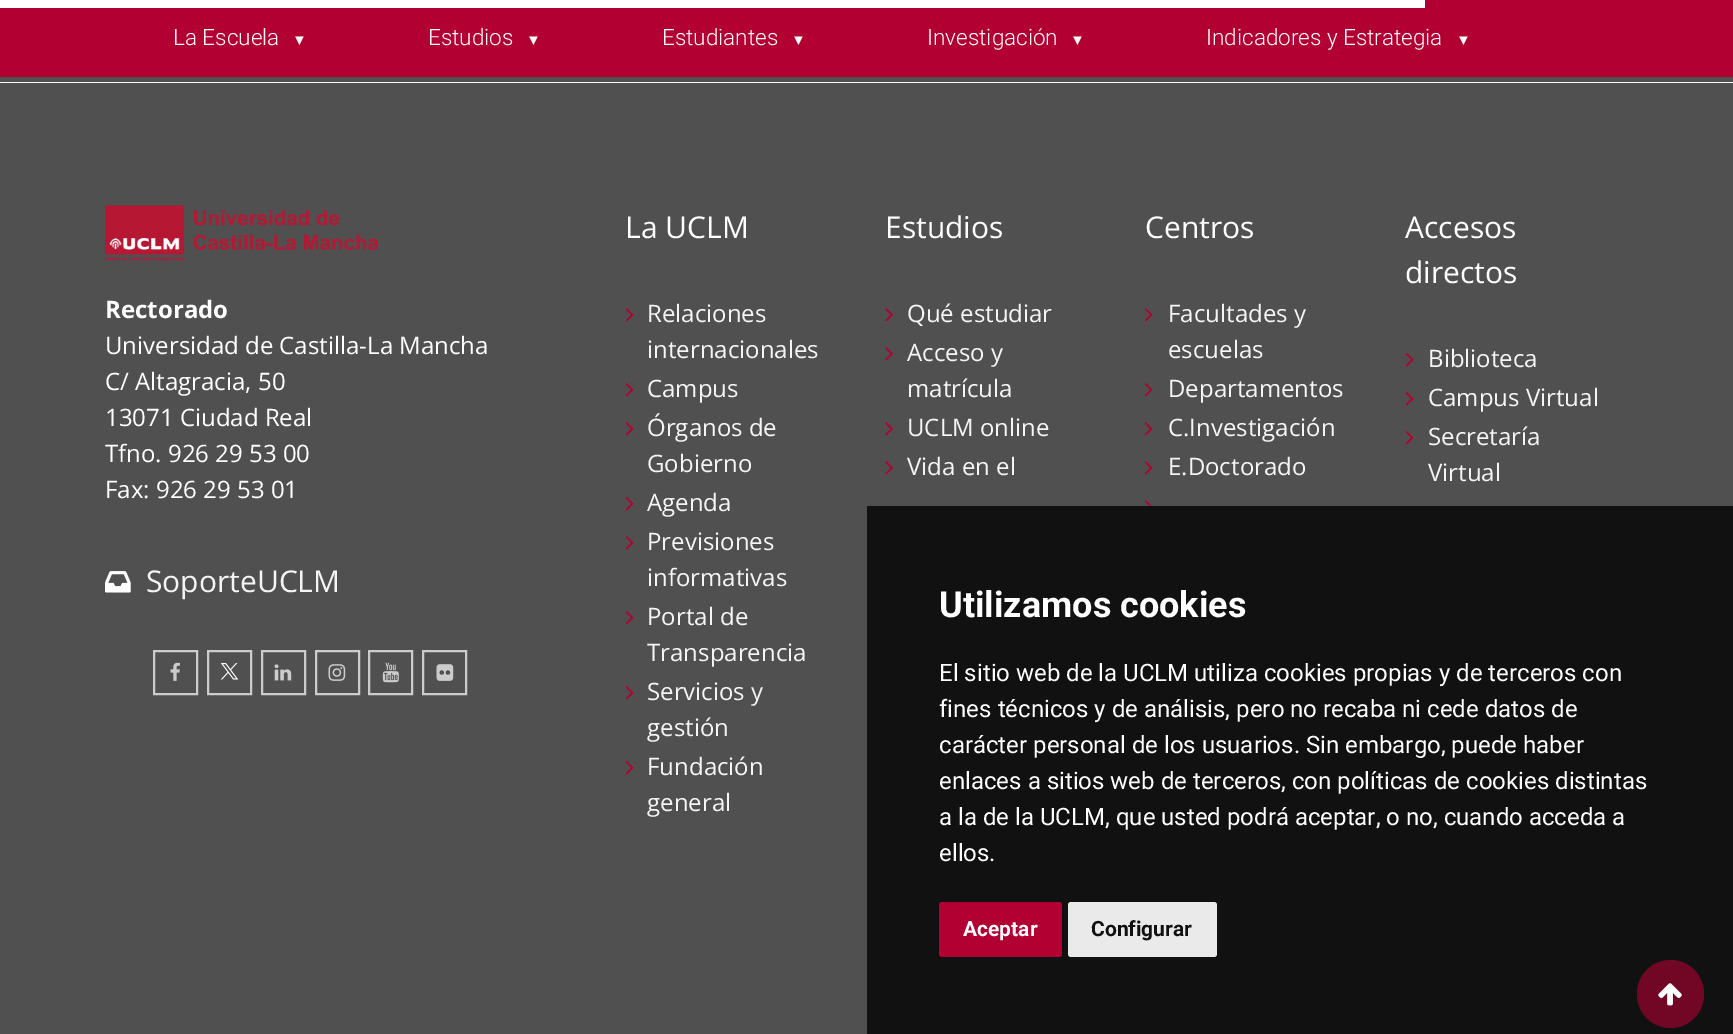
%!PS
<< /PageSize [1733 1034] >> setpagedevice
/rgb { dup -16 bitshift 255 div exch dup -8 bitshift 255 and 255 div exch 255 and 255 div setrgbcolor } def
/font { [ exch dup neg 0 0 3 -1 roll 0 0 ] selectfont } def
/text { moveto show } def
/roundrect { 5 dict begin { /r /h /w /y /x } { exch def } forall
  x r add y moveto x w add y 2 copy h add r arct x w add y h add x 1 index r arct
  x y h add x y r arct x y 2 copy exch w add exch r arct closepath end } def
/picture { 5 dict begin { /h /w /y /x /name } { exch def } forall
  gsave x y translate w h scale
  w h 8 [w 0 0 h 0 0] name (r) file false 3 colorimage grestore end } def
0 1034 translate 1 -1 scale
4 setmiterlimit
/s1 { /Roboto-Light 22.5 font 16#FFFFFF rgb } def
/s2 { /LiberationSans-Regular 15 font 16#FFFFFF rgb } def
/s3 { /OpenSans-Bold 24 font 16#FFFFFF rgb } def
/s4 { /OpenSans-Regular 24 font 16#FFFFFF rgb } def
/s5 { /OpenSans-Regular 30 font 16#F5F5F5 rgb } def
/s6 { /OpenSans-Regular 30 font 16#FFFFFF rgb } def
/s7 { /OpenSans-Regular 24 font 16#F5F5F5 rgb } def
/s8 { /Roboto-Bold 36 font 16#FFFFFF rgb } def
/s9 { /Roboto-Regular 24 font 16#FFFFFF rgb } def
/s10 { /Roboto-Bold 21 font 16#FFFFFF rgb } def
/s11 { /Roboto-Bold 21 font 16#111111 rgb } def
16#FFFFFF rgb
0 0 1733 1034 rectfill
16#B30033 rgb
0 0 1733 77 rectfill
16#FFFFFF rgb
0 0 1425 8 rectfill
16#505050 rgb
0 77 1733 5 rectfill
s1
(La Escuela) 173 45 text
s2
(▼) 292 45 text
s1
(Estudios) 428 45 text
s2
(▼) 526 45 text
s1
(Estudiantes) 662 45 text
s2
(▼) 791 45 text
s1
(Investigación) 927 45 text
s2
(▼) 1070 45 text
s1
(Indicadores y Estrategia) 1206 45 text
s2
(▼) 1456 45 text
16#505050 rgb
0 83 1733 951 rectfill
(pic1.raw) 105 205 274 56 picture
s3
(Rectorado) 105 318 text
s4
(Universidad de Castilla-La Mancha) 105 354 text
(C/ Altagracia, 50) 105 390 text
(13071 Ciudad Real) 105 426 text
(Tfno. 926 29 53 00) 105 462 text
(Fax: 926 29 53 01) 105 498 text
(pic2.raw) 105 571 26 22 picture
s5
(SoporteUCLM) 146 592 text
16#CCCCCC rgb
2 setlinewidth
154 651 43 43 rectstroke
(pic3.raw) 170 662 10 19 picture
208 651 43 43 rectstroke
(pic4.raw) 221 663 18 17 picture
262 651 43 43 rectstroke
(pic5.raw) 274 664 18 17 picture
316 651 43 43 rectstroke
(pic6.raw) 328 664 18 17 picture
369 651 43 43 rectstroke
(pic7.raw) 382 662 17 21 picture
423 651 43 43 rectstroke
(pic8.raw) 436 664 18 17 picture
s6
(La UCLM) 625 238 text
(pic9.raw) 625 308 9 14 picture
s7
(Relaciones) 647 322 text
(internacionales) 647 358 text
(pic9.raw) 625 383 9 14 picture
(Campus) 647 397 text
(pic9.raw) 625 422 9 14 picture
(Órganos de) 647 436 text
(Gobierno) 647 472 text
(pic9.raw) 625 497 9 14 picture
(Agenda) 647 511 text
(pic9.raw) 625 536 9 14 picture
(Previsiones) 647 550 text
(informativas) 647 586 text
(pic9.raw) 625 611 9 14 picture
(Portal de) 647 625 text
(Transparencia) 647 661 text
(pic9.raw) 625 686 9 14 picture
(Servicios y) 647 700 text
(gestión) 647 736 text
(pic9.raw) 625 761 9 14 picture
(Fundación) 647 775 text
(general) 647 811 text
s6
(Estudios) 885 238 text
(pic10.raw) 885 308 8 14 picture
s7
(Qué estudiar) 907 322 text
(pic10.raw) 885 347 8 14 picture
(Acceso y) 907 361 text
(matrícula) 907 397 text
(pic10.raw) 885 422 8 14 picture
(UCLM online) 907 436 text
(pic10.raw) 885 461 8 14 picture
(Vida en el) 907 475 text
s6
(Centros) 1145 238 text
(pic9.raw) 1144 308 9 14 picture
s7
(Facultades y) 1168 322 text
(escuelas) 1168 358 text
(pic9.raw) 1144 383 9 14 picture
(Departamentos) 1168 397 text
(pic9.raw) 1144 422 9 14 picture
(C.Investigación) 1168 436 text
(pic9.raw) 1144 461 9 14 picture
(E.Doctorado) 1168 475 text
(pic11.raw) 1144 500 8 6 picture
s6
(Accesos) 1405 238 text
(directos) 1405 283 text
(pic9.raw) 1405 353 9 14 picture
s7
(Biblioteca) 1428 367 text
(pic9.raw) 1405 392 9 14 picture
(Campus Virtual) 1428 406 text
(pic9.raw) 1405 431 9 14 picture
(Secretaría) 1428 445 text
(Virtual) 1428 481 text
16#111111 rgb
867 506 866 528 rectfill
s8
(Utilizamos cookies) 939 617 text
s9
(El sitio web de la UCLM utiliza cookies propias y de terceros con) 939 681 text
(fines técnicos y de análisis, pero no recaba ni cede datos de) 939 717 text
(carácter personal de los usuarios. Sin embargo, puede haber) 939 753 text
(enlaces a sitios web de terceros, con políticas de cookies distintas) 939 789 text
(a la de la UCLM, que usted podrá aceptar, o no, cuando acceda a) 939 825 text
(ellos.) 939 861 text
16#B30033 rgb
939 902 123 55 3 roundrect fill
s10
(Aceptar) 963 936 text
16#EAEAEA rgb
1068 902 149 55 3 roundrect fill
s11
(Configurar) 1091 936 text
16#720725 rgb
1637 960 67 68 33.5 roundrect fill
(pic12.raw) 1658 983 24 23 picture
showpage
